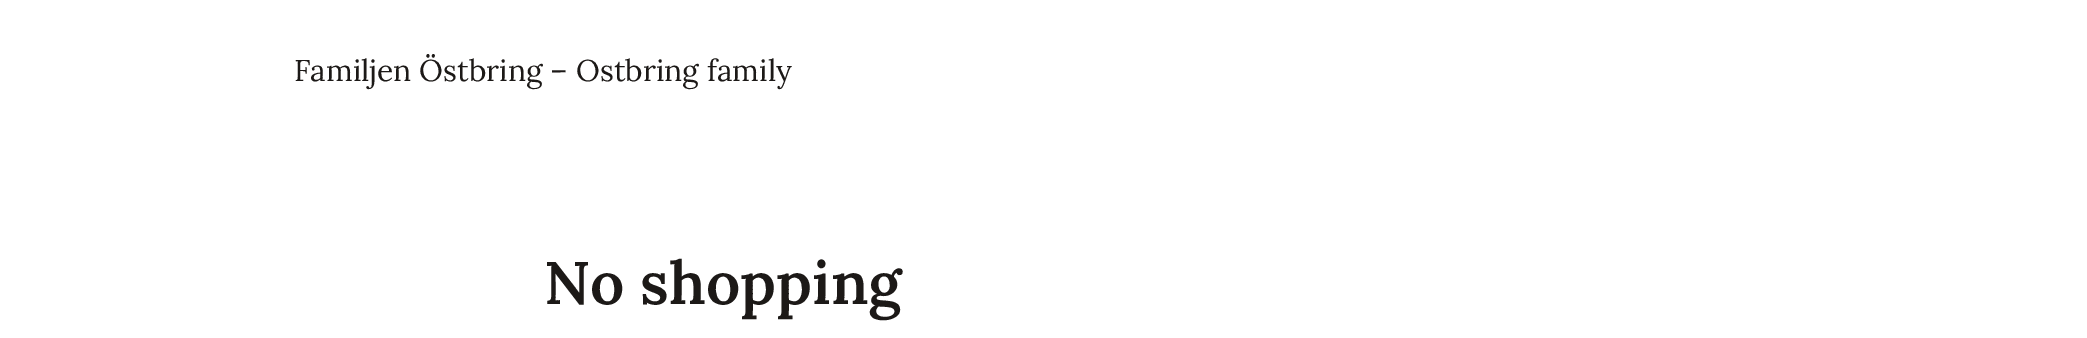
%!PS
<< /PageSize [2087 338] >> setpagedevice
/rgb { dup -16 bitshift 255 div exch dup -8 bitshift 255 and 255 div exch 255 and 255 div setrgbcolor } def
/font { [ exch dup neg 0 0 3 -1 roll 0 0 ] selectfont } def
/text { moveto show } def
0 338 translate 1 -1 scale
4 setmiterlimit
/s1 { /Lora-Regular 30 font 16#1C1917 rgb } def
/s2 { /Lora-SemiBold 60 font 16#1C1917 rgb } def
16#FFFFFF rgb
0 0 2087 338 rectfill
s1
(Familjen Östbring – Ostbring family) 294 81 text
s2
(No shopping) 544 304 text
showpage
